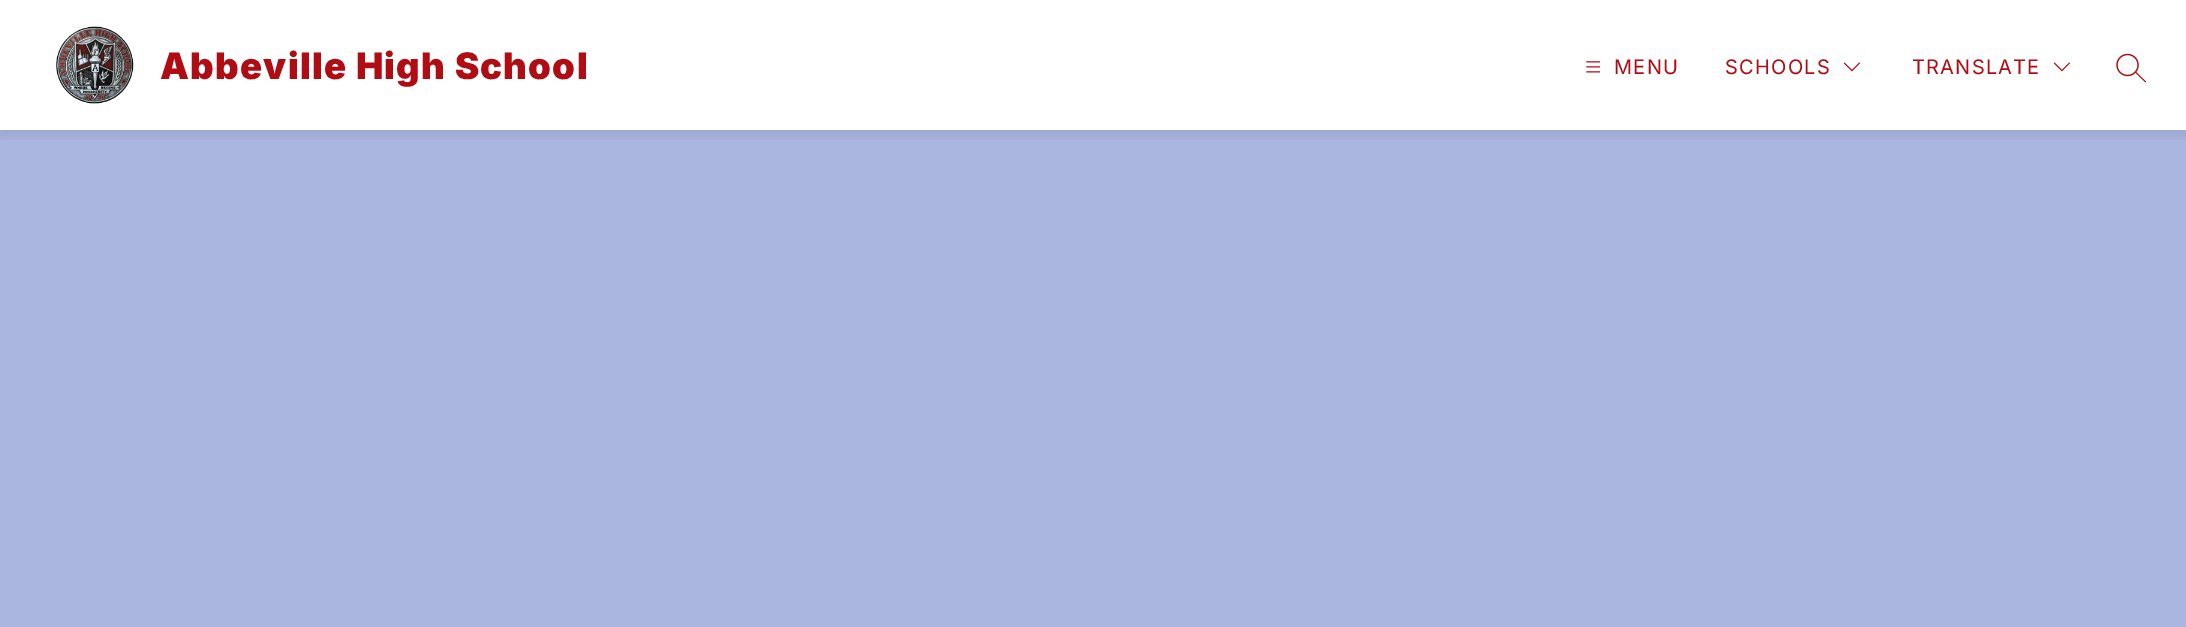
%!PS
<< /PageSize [2186 627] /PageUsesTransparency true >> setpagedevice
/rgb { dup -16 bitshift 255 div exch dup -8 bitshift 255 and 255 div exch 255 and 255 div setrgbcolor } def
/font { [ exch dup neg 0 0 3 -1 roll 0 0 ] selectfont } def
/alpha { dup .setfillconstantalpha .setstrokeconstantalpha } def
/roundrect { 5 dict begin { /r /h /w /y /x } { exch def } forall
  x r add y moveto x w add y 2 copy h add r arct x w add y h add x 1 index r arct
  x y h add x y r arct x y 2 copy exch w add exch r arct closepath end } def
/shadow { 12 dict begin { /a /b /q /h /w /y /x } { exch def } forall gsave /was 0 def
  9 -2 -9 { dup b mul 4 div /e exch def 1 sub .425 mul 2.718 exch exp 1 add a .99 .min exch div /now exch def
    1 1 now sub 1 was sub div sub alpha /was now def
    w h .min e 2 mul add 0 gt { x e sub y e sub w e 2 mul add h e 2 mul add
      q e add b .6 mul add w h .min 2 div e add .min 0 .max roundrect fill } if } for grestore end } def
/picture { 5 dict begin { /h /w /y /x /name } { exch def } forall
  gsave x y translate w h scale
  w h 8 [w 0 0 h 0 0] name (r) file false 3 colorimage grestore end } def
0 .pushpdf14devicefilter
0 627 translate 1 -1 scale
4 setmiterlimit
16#FFFFFF rgb
0 0 2186 627 rectfill
16#AAB6DF rgb
0 130 2186 497 rectfill
gsave
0 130 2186 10 rectclip
16#000000 rgb
0 5 2186 130 0 6 0.1 shadow
grestore
(pic1.raw) 56 26 78 78 picture
/Inter-Black 36.5 font
16#B00C13 rgb
160 79 moveto 1.25 0 (Abbeville High School) ashow
(pic2.raw) 1586 61 14 12 picture
/Inter-Regular 20 font
1614 74 moveto 1.25 0 (MENU) ashow
1725 74 moveto 1.25 0 (SCHOOLS) ashow
(pic3.raw) 1843 62 17 10 picture
1912 74 moveto 1.25 0 (TRANSLATE) ashow
(pic3.raw) 2053 62 17 10 picture
(pic4.raw) 2116 53 30 30 picture
.poppdf14devicefilter showpage
